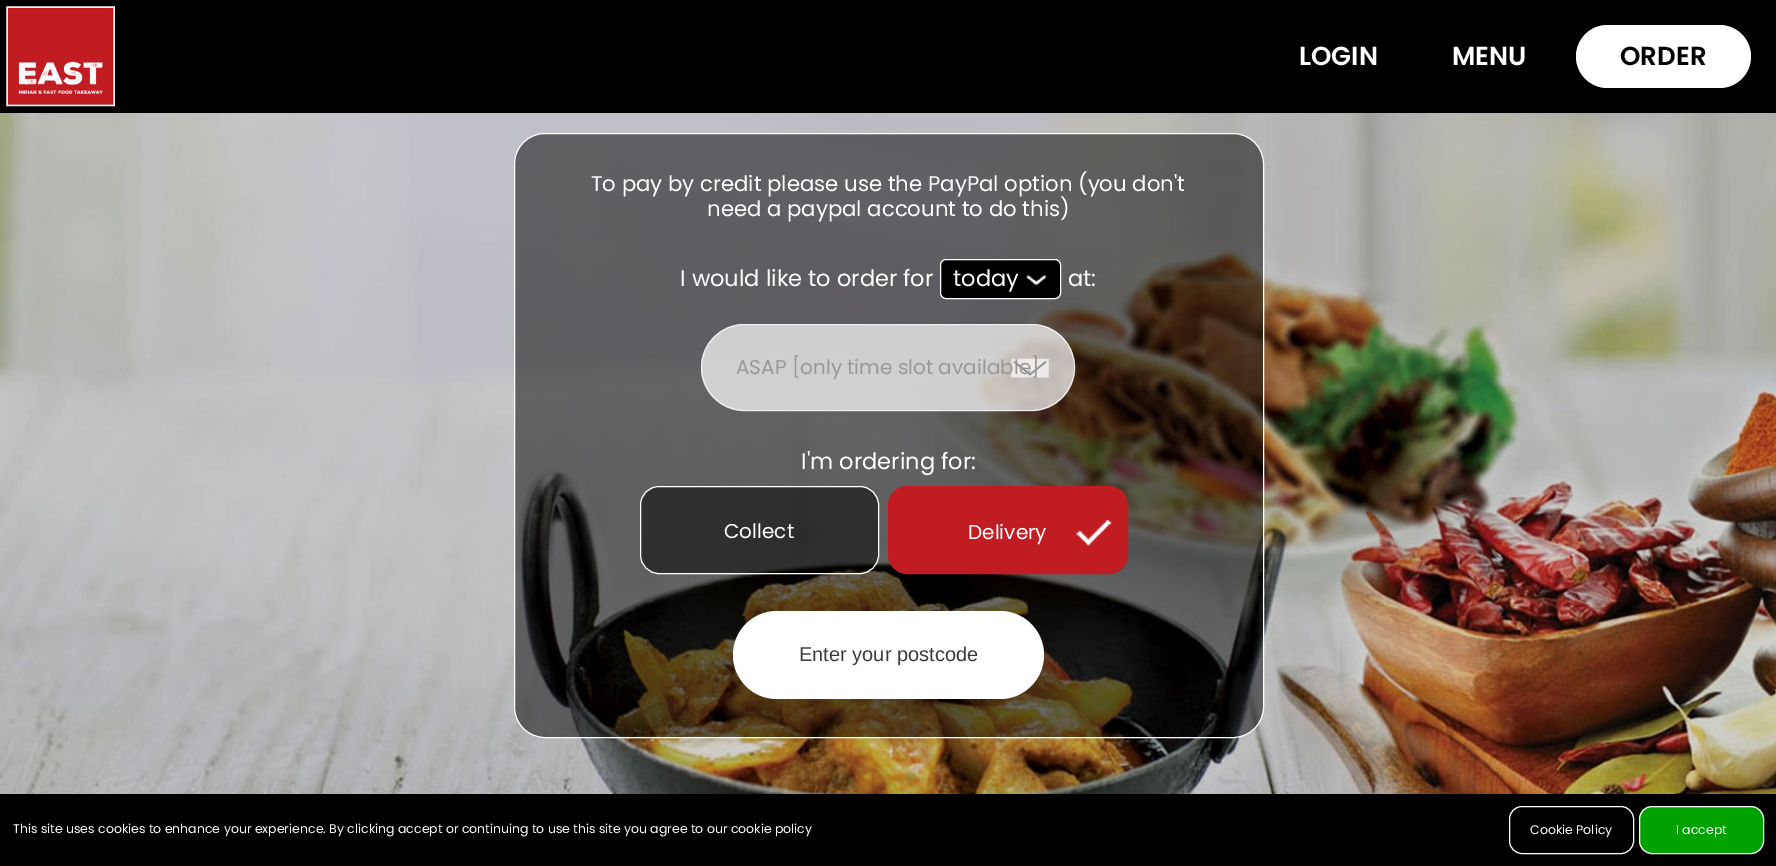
%!PS
<< /PageSize [1776 866] /PageUsesTransparency true >> setpagedevice
/rgb { dup -16 bitshift 255 div exch dup -8 bitshift 255 and 255 div exch 255 and 255 div setrgbcolor } def
/font { [ exch dup neg 0 0 3 -1 roll 0 0 ] selectfont } def
/text { moveto show } def
/alpha { dup .setfillconstantalpha .setstrokeconstantalpha } def
/roundrect { 5 dict begin { /r /h /w /y /x } { exch def } forall
  x r add y moveto x w add y 2 copy h add r arct x w add y h add x 1 index r arct
  x y h add x y r arct x y 2 copy exch w add exch r arct closepath end } def
/picture { 5 dict begin { /h /w /y /x /name } { exch def } forall
  gsave x y translate w h scale
  w h 8 [w 0 0 h 0 0] name (r) file false 3 colorimage grestore end } def
0 .pushpdf14devicefilter
0 866 translate 1 -1 scale
4 setmiterlimit
/s1 { /Poppins-SemiBold 26 font 16#FFFFFF rgb } def
/s2 { /Poppins-SemiBold 26 font 16#000000 rgb } def
/s3 { /Poppins-Regular 21.25 font 16#FFFFFF rgb } def
/s4 { /Poppins-Regular 22.5 font 16#FFFFFF rgb } def
/s5 { /Poppins-Regular 20 font 16#989898 rgb } def
/s6 { /Poppins-Regular 20 font 16#FFFFFF rgb } def
/s7 { /LiberationSans-Regular 20 font 16#393C3E rgb } def
/s8 { /Poppins-Regular 12.5 font 16#FFFFFF rgb } def
16#FFFFFF rgb
0 0 1776 866 rectfill
(pic1.raw) 0 113 1776 681 picture
16#000000 rgb
0 0 1776 113 rectfill
(pic2.raw) 6 6 109 101 picture
s1
(LOGIN) 1299 65 text
(MENU) 1452 65 text
1576 25 175 63 31.5 roundrect fill
s2
(ORDER) 1620 65 text
0.5 alpha
514.5 133.5 749 604 30.5 roundrect fill
1 alpha
16#FFFFFF rgb
514.5 133.5 749 604 30.5 roundrect stroke
s3
(To pay by credit please use the PayPal option \(you don't) 591 191 text
(need a paypal account to do this\)) 707 216 text
s4
(I would like to order for) 680 286 text
16#000000 rgb
940.5 259.5 120 39 5.5 roundrect gsave fill grestore
16#FFFFFF rgb
stroke
(today) 953 286 text
(pic3.raw) 1026 274 21 12 picture
(at:) 1068 286 text
0.7 alpha
701 324 374 87 43.5 roundrect fill
1 alpha
(pic4.raw) 1011 358 38 20 picture
0.7 alpha
701.5 324.5 373 86 43 roundrect stroke
1 alpha
s5
(ASAP [only time slot available]) 736 374 text
s4
(I'm ordering for:) 801 469 text
0.5 alpha
16#000000 rgb
640.5 486.5 238 87 18.5 roundrect fill
1 alpha
16#FFFFFF rgb
640.5 486.5 238 87 18.5 roundrect stroke
s6
(Collect) 724 538 text
16#C11C22 rgb
889.5 487.5 237 85 17.5 roundrect gsave fill grestore
3 setlinewidth
stroke
(pic5.raw) 1076 520 36 26 picture
s6
(Delivery) 968 539 text
733 611 311 88 44 roundrect fill
s7
(Enter your postcode) 799 661 text
16#000000 rgb
0 794 1776 72 rectfill
s8
(This site uses cookies to enhance your experience. By clicking accept or continuing to use this site you agree to our cookie policy) 13 833 text
1 setlinewidth
1509.5 806.5 124 47 12.5 roundrect stroke
(Cookie Policy) 1530 834 text
16#00A200 rgb
1639.5 806.5 124 47 12.5 roundrect gsave fill grestore
16#FFFFFF rgb
stroke
(I accept) 1676 834 text
.poppdf14devicefilter showpage
